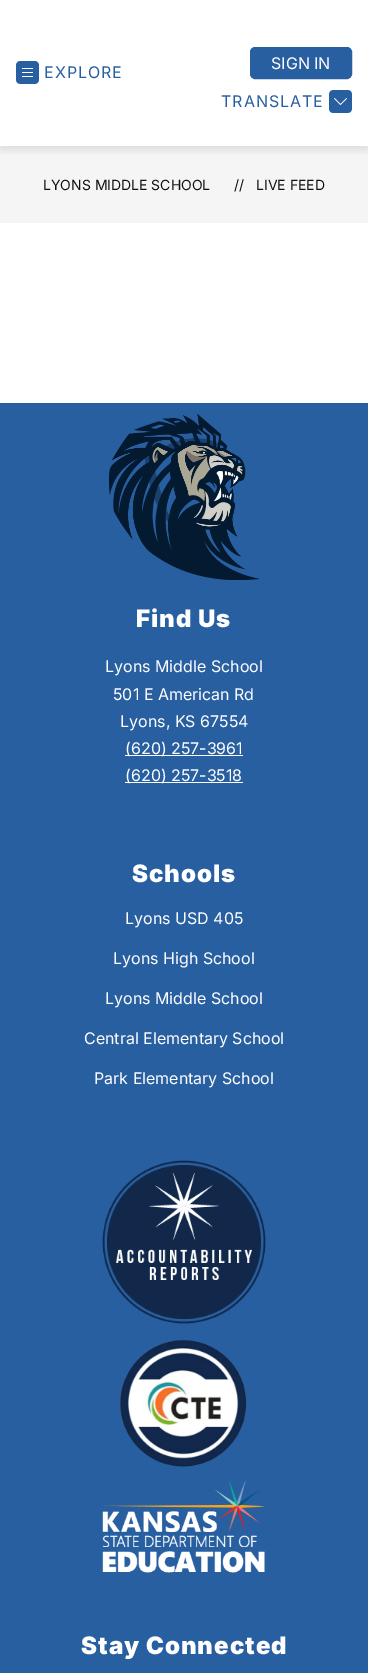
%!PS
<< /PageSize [368 1673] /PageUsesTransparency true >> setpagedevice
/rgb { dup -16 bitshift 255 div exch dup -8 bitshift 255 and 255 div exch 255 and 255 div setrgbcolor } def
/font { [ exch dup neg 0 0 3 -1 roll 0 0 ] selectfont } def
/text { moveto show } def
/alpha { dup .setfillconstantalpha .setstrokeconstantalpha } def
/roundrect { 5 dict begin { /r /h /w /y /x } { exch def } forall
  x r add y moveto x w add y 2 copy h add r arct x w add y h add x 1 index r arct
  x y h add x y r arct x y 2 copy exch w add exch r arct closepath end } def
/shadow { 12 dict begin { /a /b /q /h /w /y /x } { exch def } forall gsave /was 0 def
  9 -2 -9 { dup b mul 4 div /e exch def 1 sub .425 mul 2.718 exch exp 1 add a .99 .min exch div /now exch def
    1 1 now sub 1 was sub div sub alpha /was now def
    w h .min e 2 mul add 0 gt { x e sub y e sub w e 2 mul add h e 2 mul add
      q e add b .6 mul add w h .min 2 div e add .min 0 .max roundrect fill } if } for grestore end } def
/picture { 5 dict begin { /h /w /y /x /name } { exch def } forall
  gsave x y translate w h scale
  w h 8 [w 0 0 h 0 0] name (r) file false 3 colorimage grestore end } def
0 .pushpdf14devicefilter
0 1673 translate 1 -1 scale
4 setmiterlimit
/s1 { /Inter-Regular 16 font 16#FFFFFF rgb } def
/s2 { /Inter-Regular 14 font 16#111111 rgb } def
16#FFFFFF rgb
0 0 368 1673 rectfill
16#F5F5F5 rgb
0 146 368 77 rectfill
gsave
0 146 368 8 rectclip
16#000000 rgb
0 -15 368 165 0 5 0.1 shadow
grestore
(pic1.raw) 16 61 23 23 picture
/Inter-Regular 16 font
16#285FA0 rgb
44 78 moveto 1 0 (EXPLORE) ashow
250.5 47.5 101 31 4.5 roundrect gsave fill grestore
stroke
s1
(SIGN IN) 271 69 text
16#285FA0 rgb
221 107 moveto 1 0 (TRANSLATE) ashow
(pic2.raw) 329 90 23 23 picture
s2
(LYONS MIDDLE SCHOOL) 43 190 text
(//) 234 190 text
(LIVE FEED) 256 190 text
16#285FA0 rgb
0 403 368 1270 rectfill
(pic3.raw) 109 414 150 166 picture
/Inter-Black 24 font
16#FFFFFF rgb
136 627 moveto 1 0 (Find Us) ashow
s1
(Lyons Middle School) 105 672 text
(501 E American Rd) 113 700 text
(Lyons, KS 67554) 120 727 text
125 755 118 1 rectfill
(\(620\) 257-3961) 125 754 text
125 782 118 1 rectfill
(\(620\) 257-3518) 125 781 text
/Inter-Black 24 font
132 882 moveto 1 0 (Schools) ashow
s1
(Lyons USD 405) 125 924 text
(Lyons High School) 113 964 text
(Lyons Middle School) 105 1004 text
(Central Elementary School) 84 1044 text
(Park Elementary School) 94 1084 text
(pic4.raw) 102 1160 164 164 picture
(pic5.raw) 119 1339 128 128 picture
(pic6.raw) 102 1480 163 93 picture
/Inter-Black 24 font
81 1654 moveto 1 0 (Stay Connected) ashow
.poppdf14devicefilter showpage
